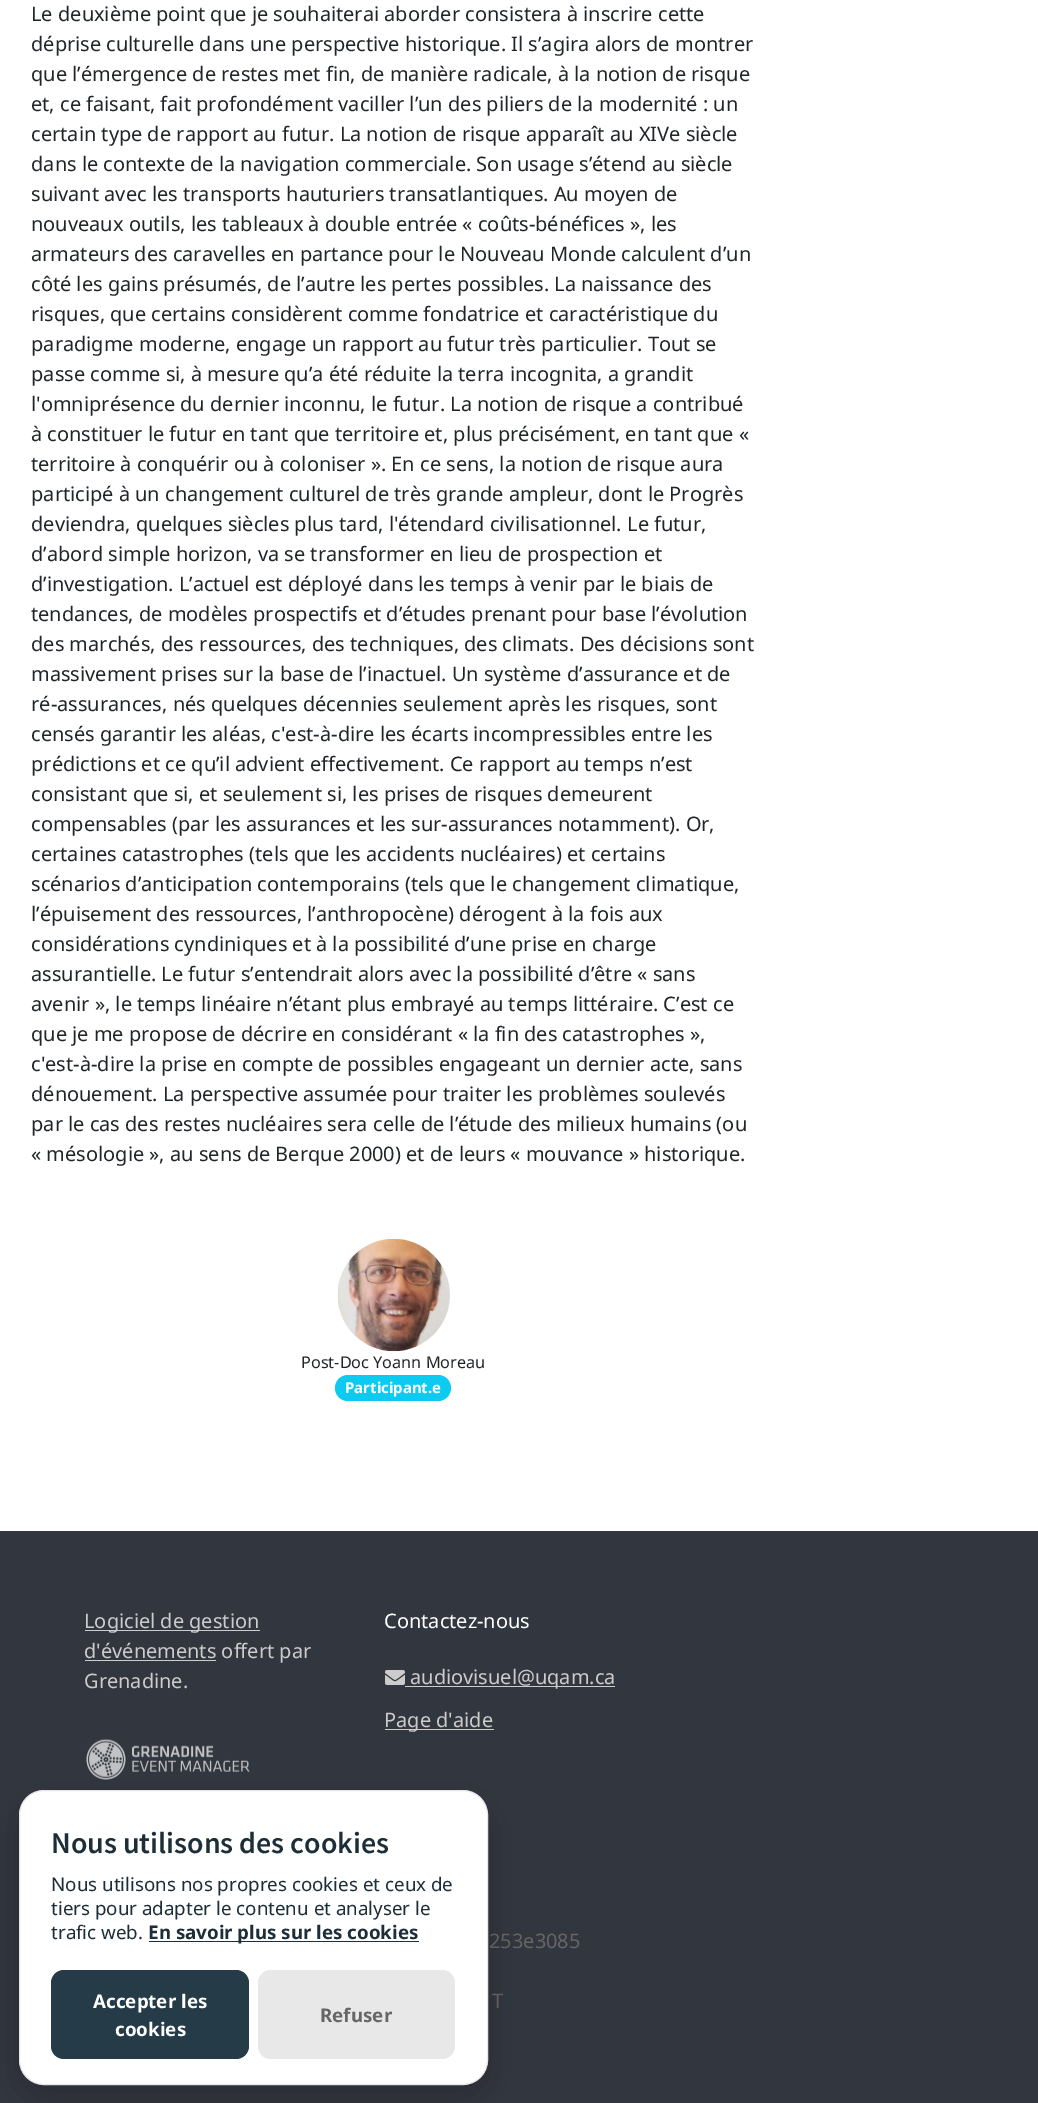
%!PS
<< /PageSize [1038 2103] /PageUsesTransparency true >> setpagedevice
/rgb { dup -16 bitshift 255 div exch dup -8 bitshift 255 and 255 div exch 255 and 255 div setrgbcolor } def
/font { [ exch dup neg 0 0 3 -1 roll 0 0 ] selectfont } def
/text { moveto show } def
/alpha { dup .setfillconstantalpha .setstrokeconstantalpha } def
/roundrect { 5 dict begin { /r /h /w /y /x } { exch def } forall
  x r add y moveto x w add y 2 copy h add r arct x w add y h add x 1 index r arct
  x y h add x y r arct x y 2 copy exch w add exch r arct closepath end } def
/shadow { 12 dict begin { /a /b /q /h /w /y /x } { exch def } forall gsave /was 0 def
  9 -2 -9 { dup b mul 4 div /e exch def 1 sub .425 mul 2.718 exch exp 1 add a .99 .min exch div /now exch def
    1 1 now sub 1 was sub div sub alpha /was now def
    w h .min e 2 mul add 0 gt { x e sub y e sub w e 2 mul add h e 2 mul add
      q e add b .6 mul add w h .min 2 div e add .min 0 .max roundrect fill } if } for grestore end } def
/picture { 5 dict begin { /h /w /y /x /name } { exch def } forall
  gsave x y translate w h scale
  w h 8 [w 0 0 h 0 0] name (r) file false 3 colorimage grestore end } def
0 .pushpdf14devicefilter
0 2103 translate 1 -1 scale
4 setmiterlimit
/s1 { /NotoSans-Regular 20 font 16#212529 rgb } def
/s2 { /NotoSans-Regular 16.25 font 16#212529 rgb } def
/s3 { /NotoSans-Bold 15 font 16#FFFFFF rgb } def
/s4 { /NotoSans-Regular 20 font 16#CCCCCC rgb } def
/s5 { /NotoSans-Regular 20 font 16#FFFFFF rgb } def
/s6 { /NotoSans-Regular 20 font 16#666666 rgb } def
/s7 { /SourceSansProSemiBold-SemiBold 30 font 16#1D2E38 rgb } def
/s8 { /NotoSans-Regular 18.75 font 16#1D2E38 rgb } def
/s9 { /NotoSans-Bold 18.75 font 16#1D2E38 rgb } def
/s10 { /NotoSans-Bold 18.75 font 16#FFFFFF rgb } def
/s11 { /NotoSans-Bold 18.75 font 16#666666 rgb } def
16#FFFFFF rgb
0 0 1038 2103 rectfill
s1
(Le deuxième point que je souhaiterai aborder consistera à inscrire cette) 31 21 text
(déprise culturelle dans une perspective historique. Il s’agira alors de montrer) 31 51 text
(que l’émergence de restes met fin, de manière radicale, à la notion de risque) 31 81 text
(et, ce faisant, fait profondément vaciller l’un des piliers de la modernité : un) 31 111 text
(certain type de rapport au futur. La notion de risque apparaît au XIVe siècle) 31 141 text
(dans le contexte de la navigation commerciale. Son usage s’étend au siècle) 31 171 text
(suivant avec les transports hauturiers transatlantiques. Au moyen de) 31 201 text
(nouveaux outils, les tableaux à double entrée « coûts-bénéfices », les) 31 231 text
(armateurs des caravelles en partance pour le Nouveau Monde calculent d’un) 31 261 text
(côté les gains présumés, de l’autre les pertes possibles. La naissance des) 31 291 text
(risques, que certains considèrent comme fondatrice et caractéristique du) 31 321 text
(paradigme moderne, engage un rapport au futur très particulier. Tout se) 31 351 text
(passe comme si, à mesure qu’a été réduite la terra incognita, a grandit) 31 381 text
(l'omniprésence du dernier inconnu, le futur. La notion de risque a contribué) 31 411 text
(à constituer le futur en tant que territoire et, plus précisément, en tant que «) 31 441 text
(territoire à conquérir ou à coloniser ». En ce sens, la notion de risque aura) 31 471 text
(participé à un changement culturel de très grande ampleur, dont le Progrès) 31 501 text
(deviendra, quelques siècles plus tard, l'étendard civilisationnel. Le futur,) 31 531 text
(d’abord simple horizon, va se transformer en lieu de prospection et) 31 561 text
(d’investigation. L’actuel est déployé dans les temps à venir par le biais de) 31 591 text
(tendances, de modèles prospectifs et d’études prenant pour base l’évolution) 31 621 text
(des marchés, des ressources, des techniques, des climats. Des décisions sont) 31 651 text
(massivement prises sur la base de l’inactuel. Un système d’assurance et de) 31 681 text
(ré-assurances, nés quelques décennies seulement après les risques, sont) 31 711 text
(censés garantir les aléas, c'est-à-dire les écarts incompressibles entre les) 31 741 text
(prédictions et ce qu’il advient effectivement. Ce rapport au temps n’est) 31 771 text
(consistant que si, et seulement si, les prises de risques demeurent) 31 801 text
(compensables \(par les assurances et les sur-assurances notamment\). Or,) 31 831 text
(certaines catastrophes \(tels que les accidents nucléaires\) et certains) 31 861 text
(scénarios d’anticipation contemporains \(tels que le changement climatique,) 31 891 text
(l’épuisement des ressources, l’anthropocène\) dérogent à la fois aux) 31 921 text
(considérations cyndiniques et à la possibilité d’une prise en charge) 31 951 text
(assurantielle. Le futur s’entendrait alors avec la possibilité d’être « sans) 31 981 text
(avenir », le temps linéaire n’étant plus embrayé au temps littéraire. C’est ce) 31 1011 text
(que je me propose de décrire en considérant « la fin des catastrophes »,) 31 1041 text
(c'est-à-dire la prise en compte de possibles engageant un dernier acte, sans) 31 1071 text
(dénouement. La perspective assumée pour traiter les problèmes soulevés) 31 1101 text
(par le cas des restes nucléaires sera celle de l’étude des milieux humains \(ou) 31 1131 text
(« mésologie », au sens de Berque 2000\) et de leurs « mouvance » historique.) 31 1161 text
(pic1.raw) 337 1238 113 114 picture
s2
(Post-Doc Yoann Moreau) 301 1368 text
16#0DCAF0 rgb
335 1375 116 26 13 roundrect fill
s3
(Participant.e) 345 1393 text
16#32363E rgb
0 1531 1038 572 rectfill
16#CCCCCC rgb
85 1630 175 1 rectfill
s4
(Logiciel de gestion) 84 1628 text
85 1660 131 1 rectfill
(d'événements offert par) 84 1658 text
(Grenadine.) 84 1688 text
(pic2.raw) 86 1739 164 41 picture
s5
(Contactez-nous) 384 1628 text
(pic3.raw) 385 1670 20 15 picture
16#CCCCCC rgb
405 1686 210 1 rectfill
(audiovisuel@uqam.ca) 410 1684 text
385 1729 109 1 rectfill
(Page d'aide) 384 1727 text
s6
(253e3085) 489 1948 text
(T) 492 2008 text
16#020203 rgb
19 1803 469 295 25 19 0.2 shadow
16#FFFFFF rgb
19.5 1790.5 468 294 24.5 roundrect gsave fill grestore
16#E6E6E6 rgb
stroke
s7
(Nous utilisons des cookies) 51 1853 text
s8
(Nous utilisons nos propres cookies et ceux de) 51 1891 text
(tiers pour adapter le contenu et analyser le) 51 1915 text
(trafic web.) 51 1939 text
149 1941 270 1 rectfill
s9
(En savoir plus sur les cookies) 148 1939 text
16#253B48 rgb
51 1970 198 89 13 roundrect fill
s10
(Accepter les) 93 2008 text
(cookies) 115 2036 text
16#E8E8E8 rgb
258 1970 197 89 13 roundrect fill
s11
(Refuser) 320 2022 text
.poppdf14devicefilter showpage
